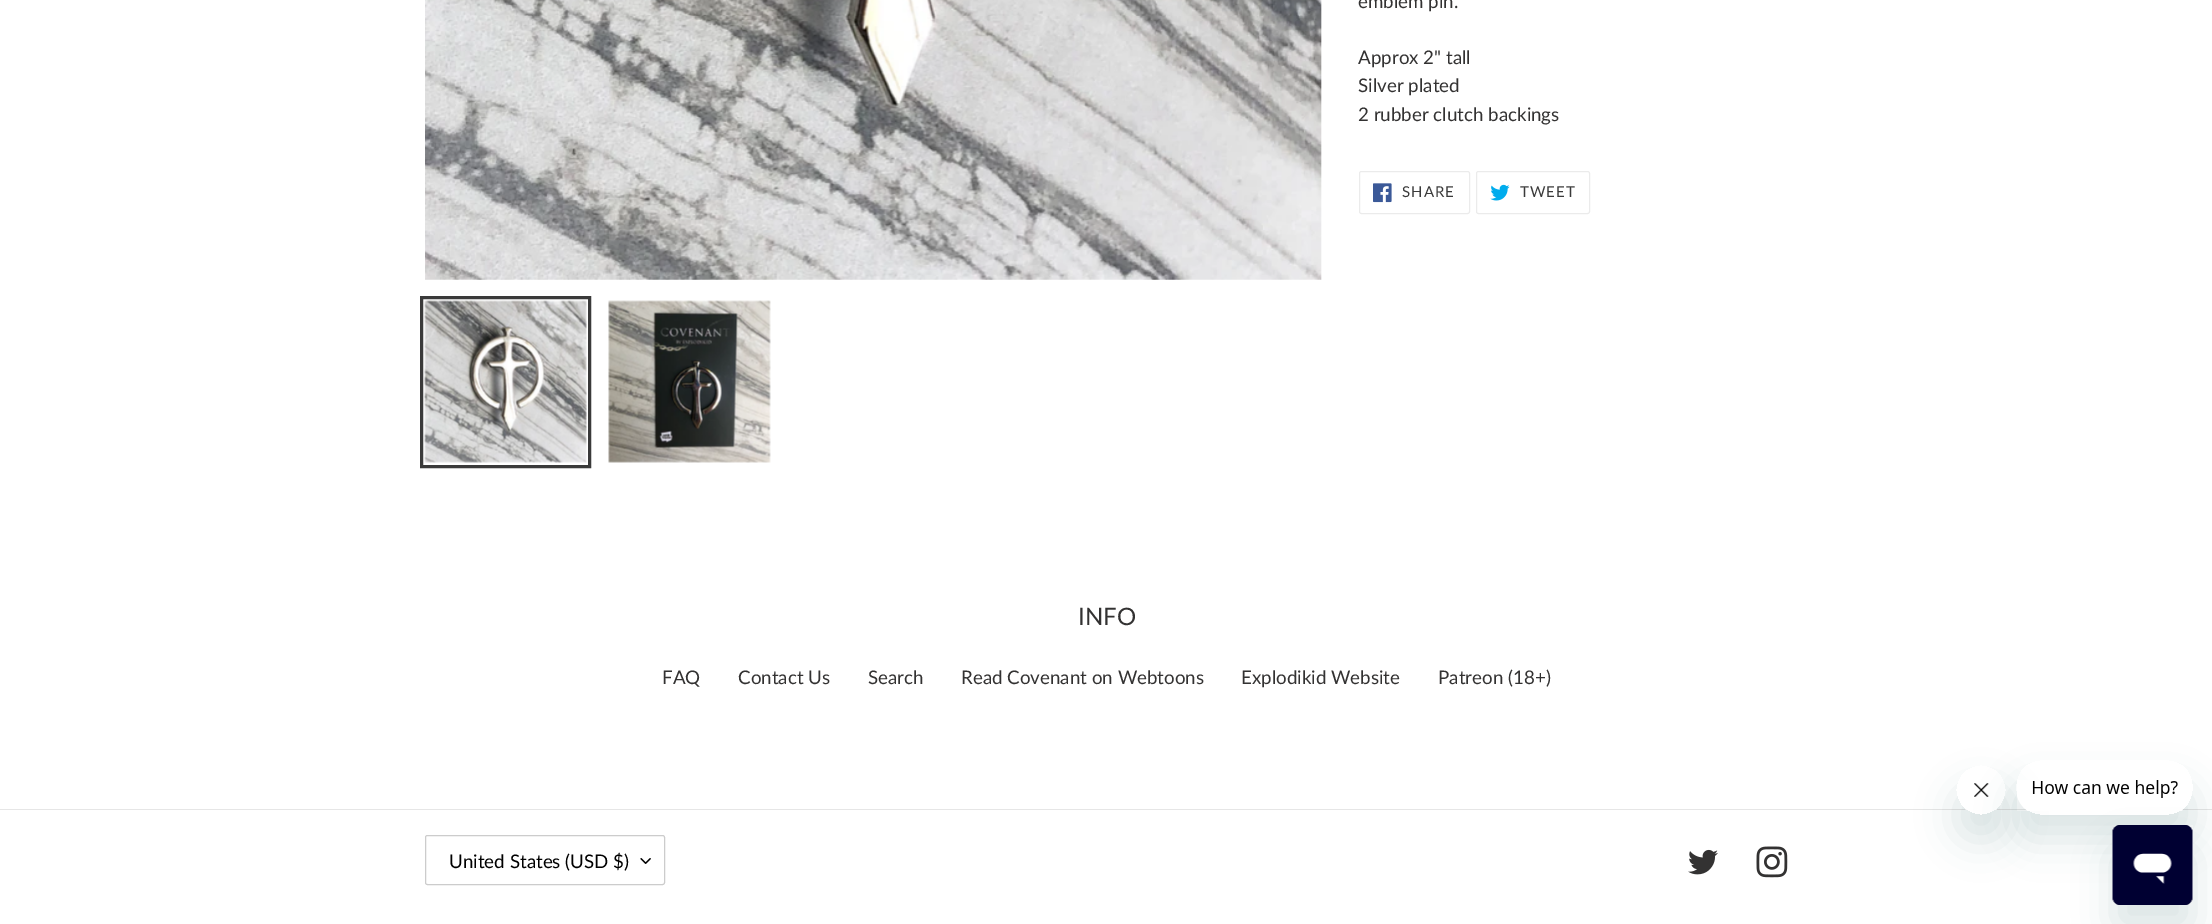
%!PS
<< /PageSize [2212 924] /PageUsesTransparency true >> setpagedevice
/rgb { dup -16 bitshift 255 div exch dup -8 bitshift 255 and 255 div exch 255 and 255 div setrgbcolor } def
/font { [ exch dup neg 0 0 3 -1 roll 0 0 ] selectfont } def
/text { moveto show } def
/alpha { dup .setfillconstantalpha .setstrokeconstantalpha } def
/roundrect { 5 dict begin { /r /h /w /y /x } { exch def } forall
  x r add y moveto x w add y 2 copy h add r arct x w add y h add x 1 index r arct
  x y h add x y r arct x y 2 copy exch w add exch r arct closepath end } def
/shadow { 12 dict begin { /a /b /q /h /w /y /x } { exch def } forall gsave /was 0 def
  9 -2 -9 { dup b mul 4 div /e exch def 1 sub .425 mul 2.718 exch exp 1 add a .99 .min exch div /now exch def
    1 1 now sub 1 was sub div sub alpha /was now def
    w h .min e 2 mul add 0 gt { x e sub y e sub w e 2 mul add h e 2 mul add
      q e add b .6 mul add w h .min 2 div e add .min 0 .max roundrect fill } if } for grestore end } def
/picture { 5 dict begin { /h /w /y /x /name } { exch def } forall
  gsave x y translate w h scale
  w h 8 [w 0 0 h 0 0] name (r) file false 3 colorimage grestore end } def
0 .pushpdf14devicefilter
0 924 translate 1 -1 scale
4 setmiterlimit
/s1 { /Lato-Regular 18.75 font 16#333232 rgb } def
/s2 { /Lato-Regular 24 font 16#333232 rgb } def
/s3 { /Lato-Regular 18.75 font 16#000000 rgb } def
16#FFFFFF rgb
0 0 2212 924 rectfill
(pic1.raw) 425 0 897 280 picture
16#3A3A3A rgb
3 setlinewidth
421.5 297.5 168 169 rectstroke
(pic2.raw) 424 300 163 163 picture
(pic3.raw) 608 300 163 163 picture
s1
(emblem pin.) 1358 8 text
(Approx 2" tall) 1358 64 text
(Silver plated) 1358 92 text
(2 rubber clutch backings) 1358 121 text
16#EBEBEB rgb
1 setlinewidth
1359.5 171.5 110 42 2 roundrect stroke
(pic4.raw) 1373 183 19 20 picture
/Lato-Regular 15 font
16#3A3A3A rgb
1402 197 moveto 1 0 (SHARE) ashow
16#EBEBEB rgb
1476.5 171.5 113 42 2 roundrect stroke
(pic5.raw) 1490 184 20 17 picture
16#3A3A3A rgb
1520 197 moveto 1 0 (TWEET) ashow
s2
(INFO) 1078 625 text
s1
(FAQ) 662 684 text
(Contact Us) 738 684 text
(Search) 868 684 text
(Read Covenant on Webtoons) 961 684 text
(Explodikid Website) 1241 684 text
(Patreon \(18+\)) 1438 684 text
16#E6E6E6 rgb
0 809 2212 1 rectfill
(pic6.raw) 640 858 11 6 picture
16#CCCCCC rgb
425.5 835.5 239 49 2 roundrect stroke
s3
(United States \(USD $\)) 449 868 text
(pic7.raw) 1688 849 30 26 picture
(pic8.raw) 1756 846 32 32 picture
gsave
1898 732 moveto 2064 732 lineto 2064 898 lineto 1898 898 lineto closepath 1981 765 moveto 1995 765 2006 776 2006 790 curveto 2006 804 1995 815 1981 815 curveto 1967 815 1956 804 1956 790 curveto 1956 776 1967 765 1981 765 curveto closepath eoclip newpath
16#17494D rgb
1956 790 50 50 25 19 0.15 shadow
grestore
(pic10.raw) 1965 783 32 27 picture
gsave
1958 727 moveto 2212 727 lineto 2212 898 lineto 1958 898 lineto closepath 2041 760 moveto 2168 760 lineto 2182 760 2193 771 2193 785 curveto 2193 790 lineto 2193 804 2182 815 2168 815 curveto 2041 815 lineto 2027 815 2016 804 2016 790 curveto 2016 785 lineto 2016 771 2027 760 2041 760 curveto closepath eoclip newpath
16#17494D rgb
2016 785 177 55 25 19 0.15 shadow
grestore
(pic9.raw) 2017 780 166 31 picture
16#17494D rgb
2113 850 80 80 8 19 0.15 shadow
(pic11.raw) 2112 825 81 80 picture
.poppdf14devicefilter showpage
